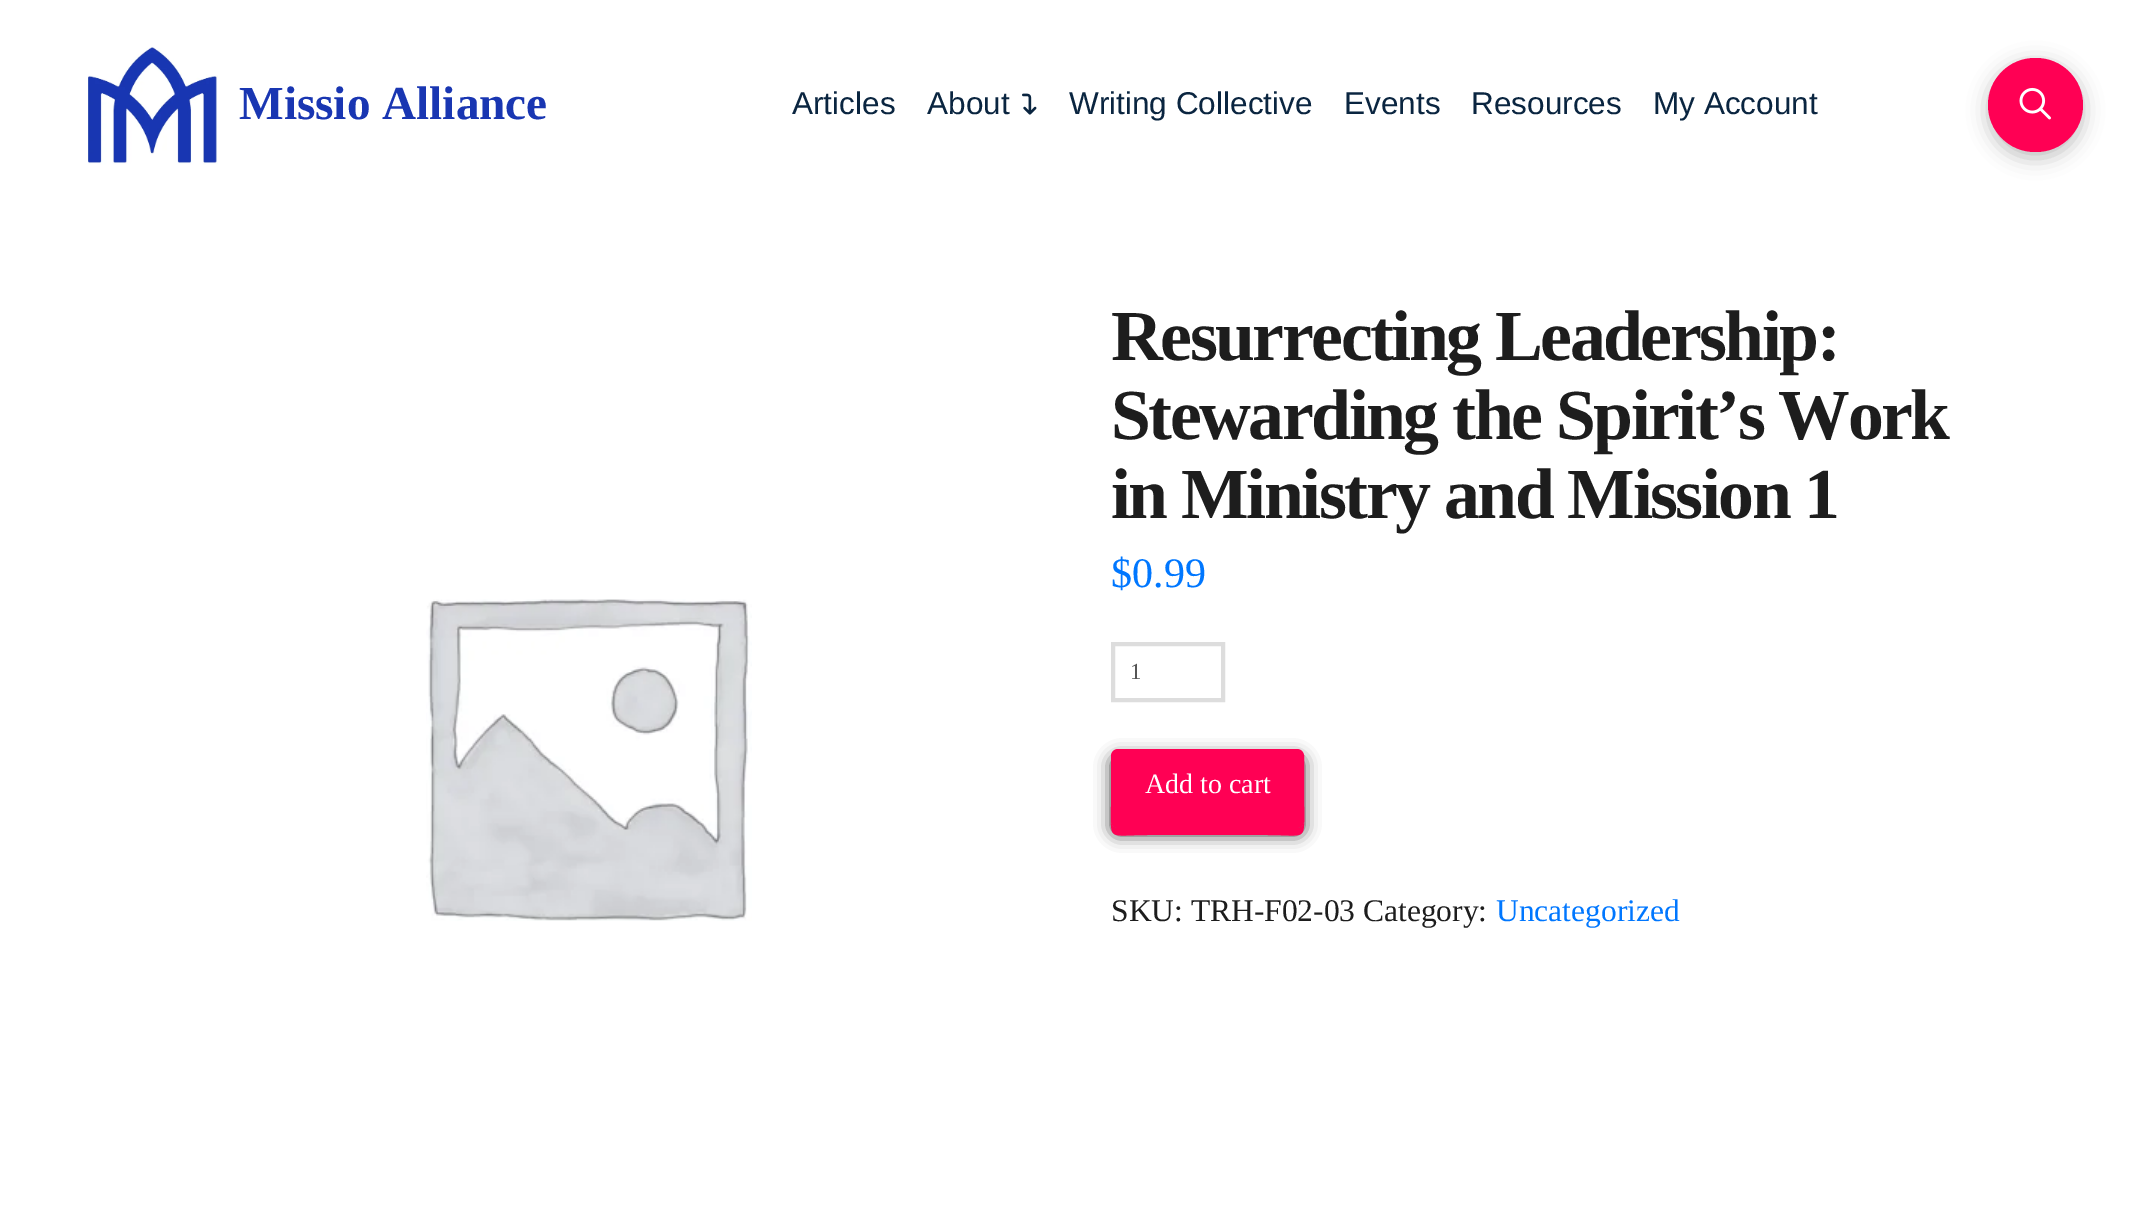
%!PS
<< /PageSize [2146 1206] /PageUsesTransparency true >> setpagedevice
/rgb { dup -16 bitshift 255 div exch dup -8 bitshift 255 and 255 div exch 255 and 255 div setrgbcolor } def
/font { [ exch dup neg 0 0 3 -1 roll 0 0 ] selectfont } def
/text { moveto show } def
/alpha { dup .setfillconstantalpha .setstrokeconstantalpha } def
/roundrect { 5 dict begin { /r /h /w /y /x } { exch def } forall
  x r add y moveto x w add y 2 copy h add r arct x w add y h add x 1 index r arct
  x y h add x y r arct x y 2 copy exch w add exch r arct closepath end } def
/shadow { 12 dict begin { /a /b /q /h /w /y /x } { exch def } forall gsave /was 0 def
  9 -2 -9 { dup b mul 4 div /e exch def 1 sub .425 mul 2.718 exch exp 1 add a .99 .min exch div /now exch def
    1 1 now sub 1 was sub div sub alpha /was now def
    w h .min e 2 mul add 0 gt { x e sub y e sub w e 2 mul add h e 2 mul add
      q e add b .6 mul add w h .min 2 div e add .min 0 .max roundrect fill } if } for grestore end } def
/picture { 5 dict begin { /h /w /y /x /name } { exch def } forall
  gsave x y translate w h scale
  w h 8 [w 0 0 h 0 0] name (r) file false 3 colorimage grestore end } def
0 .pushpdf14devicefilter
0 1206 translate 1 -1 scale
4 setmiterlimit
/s1 { /LiberationSerif-Bold 47.25 font 16#1936B2 rgb } def
/s2 { /LiberationSans-Regular 31.5 font 16#0A2540 rgb } def
/s3 { /LiberationSerif-Regular 42 font 16#0077FF rgb } def
/s4 { /LiberationSerif-Regular 23 font 16#555555 rgb } def
/s5 { /LiberationSerif-Regular 28 font 16#FFFFFF rgb } def
/s6 { /LiberationSerif-Regular 31.5 font 16#1D1D1D rgb } def
/s7 { /LiberationSerif-Regular 31.5 font 16#0077FF rgb } def
16#FFFFFF rgb
0 0 2146 1206 rectfill
(pic1.raw) 88 47 130 118 picture
s1
(Missio Alliance) 239 119 text
s2
(Articles) 792 114 text
(About) 927 114 text
(pic2.raw) 1022 93 15 22 picture
(Writing Collective) 1069 114 text
(Events) 1344 114 text
(Resources) 1471 114 text
(My Account) 1653 114 text
16#000000 rgb
1988 63 95 95 47.5 10 0.25 shadow
16#FF0054 rgb
1988 58 95 94 47 roundrect fill
(pic3.raw) 2019 87 32 33 picture
(pic4.raw) 426 599 326 322 picture
/LiberationSerif-Bold 71.75 font
16#1D1D1D rgb
1111 360 moveto -2.5 0 (Resurrecting Leadership:) ashow
1111 439 moveto -2.5 0 (Stewarding the Spirit’s Work) ashow
1111 518 moveto -2.5 0 (in Ministry and Mission 1) ashow
s3
($0.99) 1111 587 text
16#DDDDDD rgb
4 setlinewidth
1113 644 110 56 rectstroke
s4
(1) 1130 679 text
16#000000 rgb
1111 756 193 79 7 8 0.75 shadow
16#FF0054 rgb
1111 761 moveto 1111 806 lineto 1111 842 1107 835 1148 835 curveto 1267 835 lineto 1308 835 1304 842 1304 806 curveto 1304 761 lineto 1304 821 lineto 1304 825 1301 828 1297 828 curveto 1118 828 lineto 1114 828 1111 825 1111 821 curveto closepath fill
1112 750 191 77 6 roundrect gsave fill grestore
2 setlinewidth
stroke
s5
(Add to cart) 1145 793 text
s6
(SKU: TRH-F02-03 Category:) 1111 921 text
s7
(Uncategorized) 1496 921 text
.poppdf14devicefilter showpage
